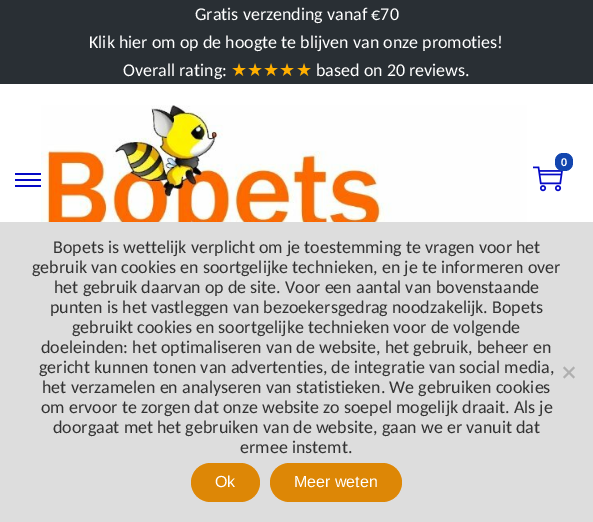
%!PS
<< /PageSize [593 522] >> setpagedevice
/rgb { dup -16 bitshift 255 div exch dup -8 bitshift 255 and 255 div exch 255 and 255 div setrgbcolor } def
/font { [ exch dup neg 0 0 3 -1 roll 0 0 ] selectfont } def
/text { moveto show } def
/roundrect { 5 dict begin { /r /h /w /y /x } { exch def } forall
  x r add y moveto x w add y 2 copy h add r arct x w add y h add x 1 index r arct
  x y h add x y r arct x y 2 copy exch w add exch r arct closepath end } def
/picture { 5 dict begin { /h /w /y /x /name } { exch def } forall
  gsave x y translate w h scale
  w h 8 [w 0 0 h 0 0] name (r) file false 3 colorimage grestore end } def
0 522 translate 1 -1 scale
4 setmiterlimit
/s1 { /Carlito-Regular 18 font 16#FFFFFF rgb } def
/s2 { /DejaVuSans-Regular 18 font 16#FFAF00 rgb } def
/s3 { /Carlito-Bold 12 font 16#FFFFFF rgb } def
/s4 { /Carlito-Regular 18 font 16#333333 rgb } def
/s5 { /LiberationSans-Regular 16 font 16#FFFFFF rgb } def
16#FFFFFF rgb
0 0 593 522 rectfill
16#292F34 rgb
0 0 593 84 rectfill
s1
(Gratis verzending vanaf €70) 195 20 text
(Klik hier om op de hoogte te blijven van onze promoties!) 89 48 text
(Overall rating:) 123 76 text
s2
(★★★★★) 231 76 text
s1
(based on 20 reviews.) 316 76 text
(pic1.raw) 41 105 486 117 picture
(pic2.raw) 533 166 30 26 picture
16#1346AF rgb
555 153 18 18 8 roundrect fill
s3
(0) 561 166 text
16#0509C6 rgb
15 179 26 2 rectfill
15 173 26 2 rectfill
15 185 26 2 rectfill
16#DDDDDD rgb
0 222 593 300 rectfill
s4
(Bopets is wettelijk verplicht om je toestemming te vragen voor het) 53 253 text
(gebruik van cookies en soortgelijke technieken, en je te informeren over) 32 273 text
(het gebruik daarvan op de site. Voor een aantal van bovenstaande) 54 293 text
(punten is het vastleggen van bezoekersgedrag noodzakelijk. Bopets) 50 313 text
(gebruikt cookies en soortgelijke technieken voor de volgende) 72 333 text
(doeleinden: het optimaliseren van de website, het gebruik, beheer en) 41 353 text
(gericht kunnen tonen van advertenties, de integratie van social media,) 39 373 text
(het verzamelen en analyseren van statistieken. We gebruiken cookies) 42 393 text
(om ervoor te zorgen dat onze website zo soepel mogelijk draait. Als je) 41 413 text
(doorgaat met het gebruiken van de website, gaan we er vanuit dat) 53 433 text
(ermee instemt.) 240 453 text
16#AFAFAF rgb
573.5 366.5 moveto 575 368 lineto 564.5 378.5 lineto 563 377 lineto closepath fill
563 368 moveto 564.5 366.5 lineto 575 377 lineto 573.5 378.5 lineto closepath fill
16#DD8706 rgb
191 463 69 39 19.5 roundrect fill
s5
(Ok) 215 487 text
16#DD8706 rgb
270 463 132 39 19.5 roundrect fill
s5
(Meer weten) 294 487 text
showpage
